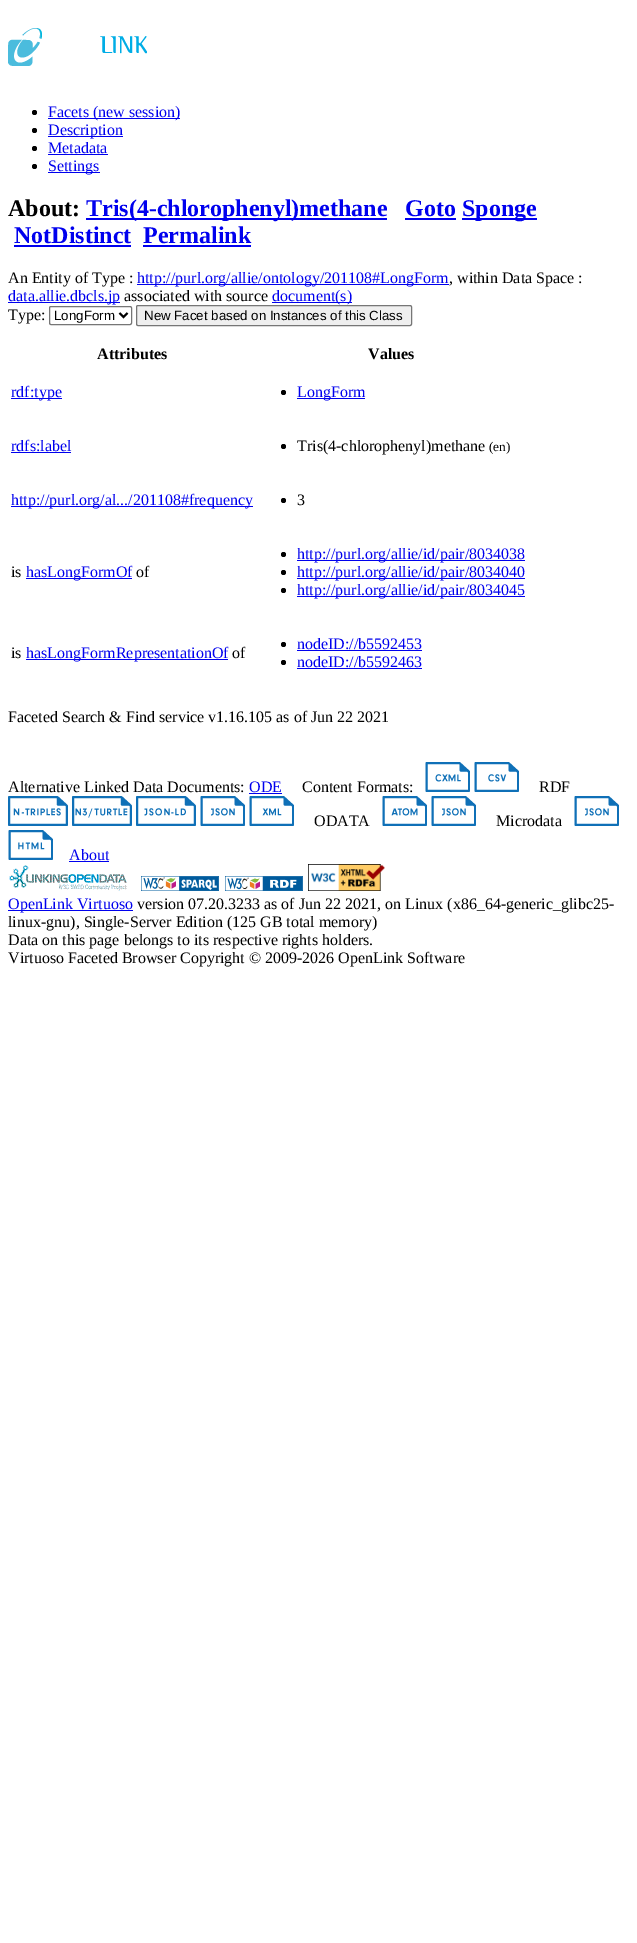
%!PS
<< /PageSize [637 1943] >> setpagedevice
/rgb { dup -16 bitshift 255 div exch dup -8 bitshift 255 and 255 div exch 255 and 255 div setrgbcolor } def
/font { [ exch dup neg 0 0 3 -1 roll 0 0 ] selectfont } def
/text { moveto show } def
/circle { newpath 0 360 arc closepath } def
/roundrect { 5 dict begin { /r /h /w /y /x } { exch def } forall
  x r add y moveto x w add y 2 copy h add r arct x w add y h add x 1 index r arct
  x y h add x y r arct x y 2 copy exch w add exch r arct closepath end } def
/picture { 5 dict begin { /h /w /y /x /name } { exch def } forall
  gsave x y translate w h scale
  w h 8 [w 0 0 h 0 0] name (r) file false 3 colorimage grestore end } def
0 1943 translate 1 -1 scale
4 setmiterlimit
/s1 { /LiberationSerif-Regular 16 font 16#0000EE rgb } def
/s2 { /LiberationSerif-Bold 24 font 16#000000 rgb } def
/s3 { /LiberationSerif-Bold 24 font 16#0000EE rgb } def
/s4 { /LiberationSerif-Regular 16 font 16#000000 rgb } def
/s5 { /LiberationSans-Regular 13.3 font 16#000000 rgb } def
/s6 { /LiberationSerif-Bold 16 font 16#000000 rgb } def
/s7 { /LiberationSerif-Regular 13.3 font 16#000000 rgb } def
16#FFFFFF rgb
0 0 637 1943 rectfill
(pic1.raw) 8 28 139 38 picture
16#000000 rgb
34.5 112.5 2.5 circle fill
16#0000EE rgb
48 118 132 1 rectfill
s1
(Facets \(new session\)) 48 117 text
16#000000 rgb
34.5 130.5 2.5 circle fill
16#0000EE rgb
48 136 75 1 rectfill
(Description) 48 135 text
16#000000 rgb
34.5 148.5 2.5 circle fill
s1
(Metadata) 48 153 text
48 154 60 1 rectfill
16#000000 rgb
34.5 166.5 2.5 circle fill
16#0000EE rgb
48 172 52 1 rectfill
(Settings) 48 171 text
s2
(About:) 8 216 text
16#0000EE rgb
86 218 301 2 rectfill
(Tris\(4-chlorophenyl\)methane) 86 216 text
(Goto) 405 216 text
405 218 51 2 rectfill
462 218 75 2 rectfill
(Sponge) 462 216 text
(NotDistinct) 14 243 text
14 245 117 2 rectfill
(Permalink) 143 243 text
143 245 108 2 rectfill
s4
(An Entity of Type :) 8 283 text
16#0000EE rgb
137 284 312 1 rectfill
(http://purl.org/allie/ontology/201108#LongForm) 137 283 text
s4
(, within Data Space :) 449 283 text
16#0000EE rgb
8 302 112 1 rectfill
(data.allie.dbcls.jp) 8 301 text
s4
(associated with source) 124 301 text
16#0000EE rgb
272 302 80 1 rectfill
(document\(s\)) 272 301 text
s4
(Type:) 8 320 text
16#767676 rgb
49.5 306.5 82 18 1.5 roundrect stroke
16#000000 rgb
2 setlinewidth
119.5 313 moveto 123.5 317 lineto 127.5 313 lineto stroke
s5
(LongForm) 54 320 text
16#EFEFEF rgb
136.5 305.5 275 20 1.5 roundrect gsave fill grestore
16#767676 rgb
1 setlinewidth
stroke
s5
(New Facet based on Instances of this Class) 144 320 text
s6
(Attributes) 97 359 text
(Values) 368 359 text
16#0000EE rgb
11 398 51 1 rectfill
s1
(rdf:type) 11 397 text
16#000000 rgb
283.5 392.5 2.5 circle fill
16#0000EE rgb
297 398 68 1 rectfill
(LongForm) 297 397 text
(rdfs:label) 11 451 text
11 452 60 1 rectfill
16#000000 rgb
283.5 446.5 2.5 circle fill
(Tris\(4-chlorophenyl\)methane) 297 451 text
s7
(\(en\)) 489 451 text
16#0000EE rgb
11 506 242 1 rectfill
s1
(http://purl.org/al.../201108#frequency) 11 505 text
16#000000 rgb
283.5 500.5 2.5 circle fill
(3) 297 505 text
(is) 11 577 text
16#0000EE rgb
26 578 106 1 rectfill
(hasLongFormOf) 26 577 text
s4
(of) 136 577 text
283.5 554.5 2.5 circle fill
16#0000EE rgb
297 560 228 1 rectfill
(http://purl.org/allie/id/pair/8034038) 297 559 text
16#000000 rgb
283.5 572.5 2.5 circle fill
16#0000EE rgb
297 578 228 1 rectfill
(http://purl.org/allie/id/pair/8034040) 297 577 text
16#000000 rgb
283.5 590.5 2.5 circle fill
16#0000EE rgb
297 596 228 1 rectfill
(http://purl.org/allie/id/pair/8034045) 297 595 text
s4
(is) 11 658 text
16#0000EE rgb
26 659 202 1 rectfill
(hasLongFormRepresentationOf) 26 658 text
s4
(of) 232 658 text
283.5 644.5 2.5 circle fill
s1
(nodeID://b5592453) 297 649 text
297 650 125 1 rectfill
16#000000 rgb
283.5 662.5 2.5 circle fill
s1
(nodeID://b5592463) 297 667 text
297 668 125 1 rectfill
s4
(Faceted Search & Find service v1.16.105 as of Jun 22 2021) 8 722 text
(Alternative Linked Data Documents:) 8 792 text
s1
(ODE) 249 792 text
249 793 33 1 rectfill
s4
(Content Formats:) 302 792 text
(pic2.raw) 425 762 45 30 picture
(pic3.raw) 474 762 45 30 picture
(RDF) 539 792 text
(pic4.raw) 8 796 60 30 picture
(pic5.raw) 72 796 60 30 picture
(pic6.raw) 136 796 60 30 picture
(pic7.raw) 200 796 45 30 picture
(pic8.raw) 249 796 45 30 picture
(ODATA) 314 826 text
(pic9.raw) 382 796 45 30 picture
(pic7.raw) 431 796 45 30 picture
(Microdata) 496 826 text
(pic7.raw) 574 796 45 30 picture
(pic10.raw) 8 830 45 30 picture
s1
(About) 69 860 text
69 861 40 1 rectfill
(pic11.raw) 9 865 118 26 picture
(pic12.raw) 141 876 78 15 picture
(pic13.raw) 225 876 78 15 picture
(pic14.raw) 308 864 77 27 picture
8 910 125 1 rectfill
(OpenLink Virtuoso) 8 909 text
s4
(version 07.20.3233 as of Jun 22 2021, on Linux \(x86_64-generic_glibc25-) 137 909 text
(linux-gnu\), Single-Server Edition \(125 GB total memory\)) 8 927 text
(Data on this page belongs to its respective rights holders.) 8 945 text
(Virtuoso Faceted Browser Copyright © 2009-2026 OpenLink Software) 8 963 text
showpage
